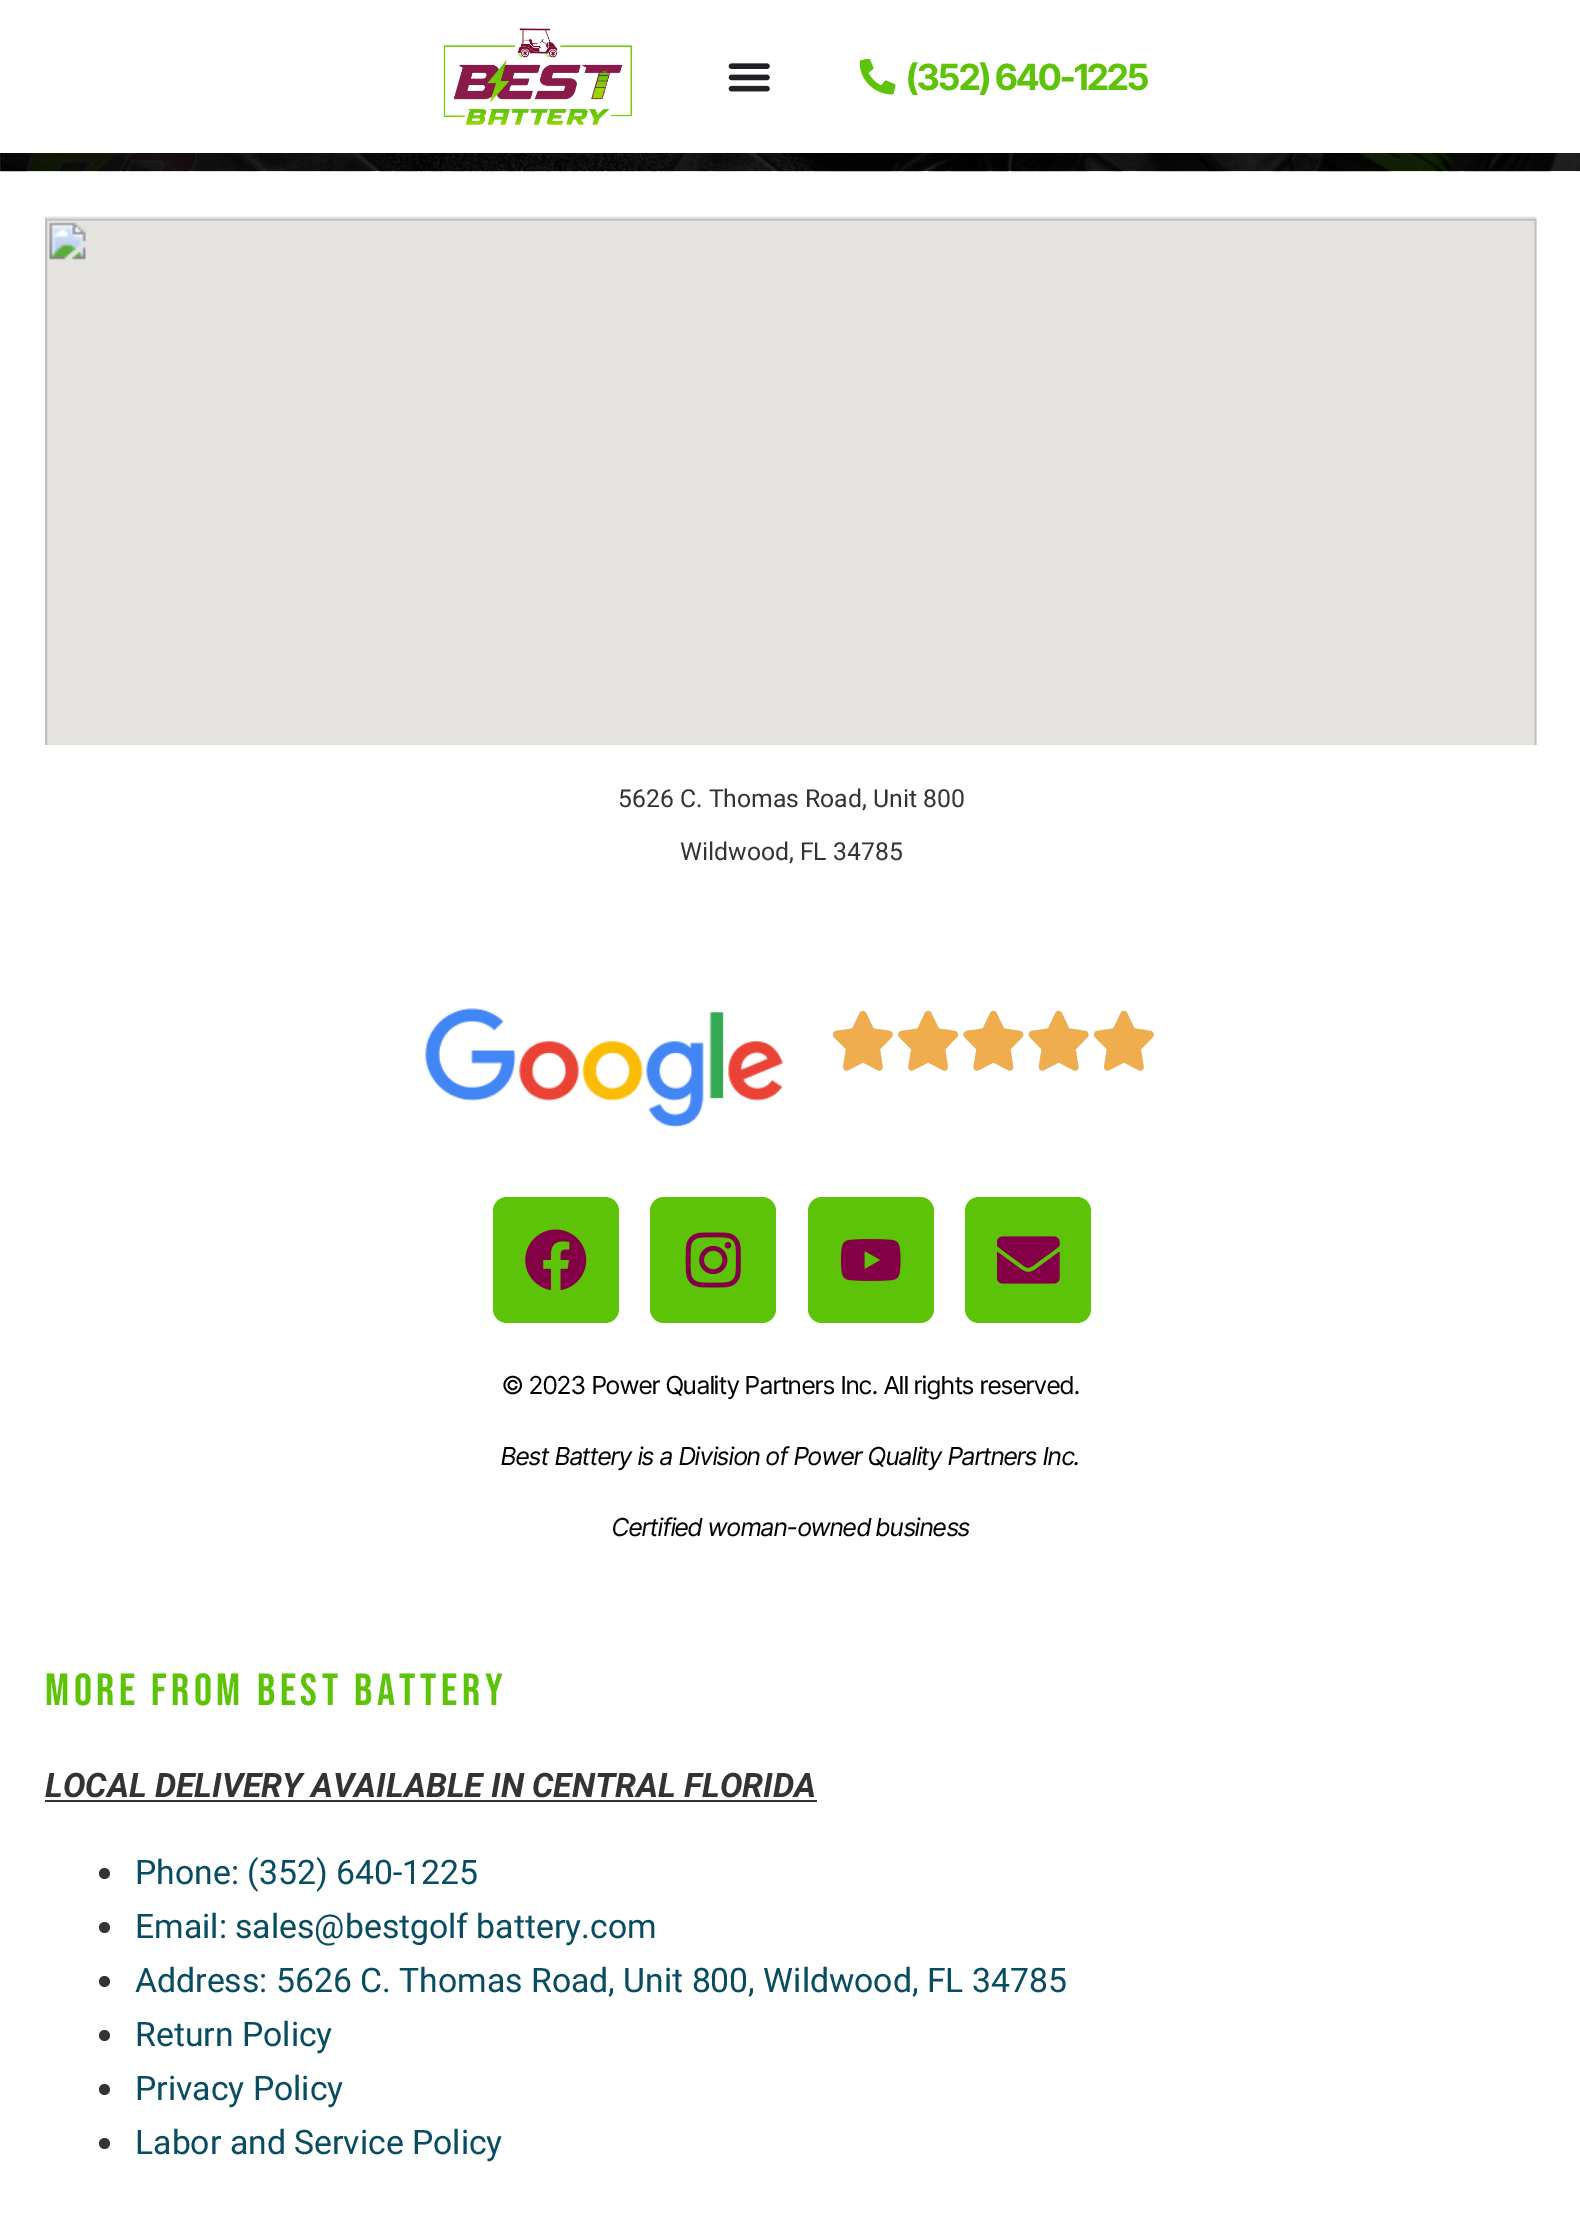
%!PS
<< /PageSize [1580 2213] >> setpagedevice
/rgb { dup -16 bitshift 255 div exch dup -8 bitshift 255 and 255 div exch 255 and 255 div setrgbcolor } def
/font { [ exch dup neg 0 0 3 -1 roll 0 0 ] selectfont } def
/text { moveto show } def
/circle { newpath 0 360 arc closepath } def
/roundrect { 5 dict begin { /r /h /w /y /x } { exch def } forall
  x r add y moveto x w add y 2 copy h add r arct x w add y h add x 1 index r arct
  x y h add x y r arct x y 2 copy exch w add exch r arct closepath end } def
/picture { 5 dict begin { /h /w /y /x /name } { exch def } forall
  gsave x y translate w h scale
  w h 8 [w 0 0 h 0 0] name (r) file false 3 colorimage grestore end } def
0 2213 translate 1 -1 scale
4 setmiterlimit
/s1 { /Roboto-Regular 24.75 font 16#333333 rgb } def
/s2 { /InterTight-Regular 24.75 font 16#000000 rgb } def
/s3 { /InterTight-Italic 24.75 font 16#000000 rgb } def
/s4 { /Roboto-BoldItalic 33.75 font 16#333333 rgb } def
/s5 { /Roboto-Regular 33.75 font 16#084C61 rgb } def
16#FFFFFF rgb
0 0 1580 2213 rectfill
(pic1.raw) 443 28 190 97 picture
(pic2.raw) 728 63 42 29 picture
(pic3.raw) 860 59 36 36 picture
/InterTight-Bold 36 font
16#5DC309 rgb
906 90 moveto -1.5 0 (\(352\) 640-1225) ashow
(pic4.raw) 0 153 1580 19 picture
(pic5.raw) 45 216 1492 529 picture
s1
(5626 C. Thomas Road, Unit 800) 618 807 text
(Wildwood, FL 34785) 680 860 text
(pic6.raw) 425 1008 358 120 picture
(pic7.raw) 833 1010 60 61 picture
(pic8.raw) 833 1010 60 61 picture
(pic9.raw) 898 1010 60 61 picture
(pic10.raw) 898 1010 60 61 picture
(pic11.raw) 963 1010 61 61 picture
(pic12.raw) 963 1010 61 61 picture
(pic13.raw) 1028 1010 61 61 picture
(pic14.raw) 1028 1010 61 61 picture
(pic7.raw) 1094 1010 60 61 picture
(pic8.raw) 1094 1010 60 61 picture
16#5DC309 rgb
493 1197 126 126 14 roundrect fill
(pic15.raw) 525 1229 62 62 picture
650 1197 126 126 14 roundrect fill
(pic16.raw) 685 1232 56 56 picture
808 1197 126 126 14 roundrect fill
(pic17.raw) 840 1239 61 42 picture
965 1197 126 126 14 roundrect fill
(pic18.raw) 997 1236 63 48 picture
s2
(© 2023 Power Quality Partners Inc. All rights reserved.) 502 1394 text
s3
(Best Battery is a Division of Power Quality Partners Inc.) 501 1465 text
(Certified woman-owned business) 612 1536 text
/BebasNeue-Regular 45 font
16#5DC309 rgb
45 1705 moveto 4.5 0 (More From Best Battery) ashow
s4
(LOCAL DELIVERY AVAILABLE IN CENTRAL FLORIDA) 45 1797 text
45 1800 772 2 rectfill
104.5 1873.5 5.5 circle fill
s5
(Phone: \(352\) 640-1225) 135 1884 text
16#333333 rgb
104.5 1927.5 5.5 circle fill
s5
(Email: sales@bestgolf battery.com) 135 1938 text
16#333333 rgb
104.5 1981.5 5.5 circle fill
s5
(Address: 5626 C. Thomas Road, Unit 800, Wildwood, FL 34785) 135 1992 text
16#333333 rgb
104.5 2035.5 5.5 circle fill
s5
(Return Policy) 135 2046 text
16#333333 rgb
104.5 2089.5 5.5 circle fill
s5
(Privacy Policy) 135 2100 text
16#333333 rgb
104.5 2143.5 5.5 circle fill
s5
(Labor and Service Policy) 135 2154 text
showpage
